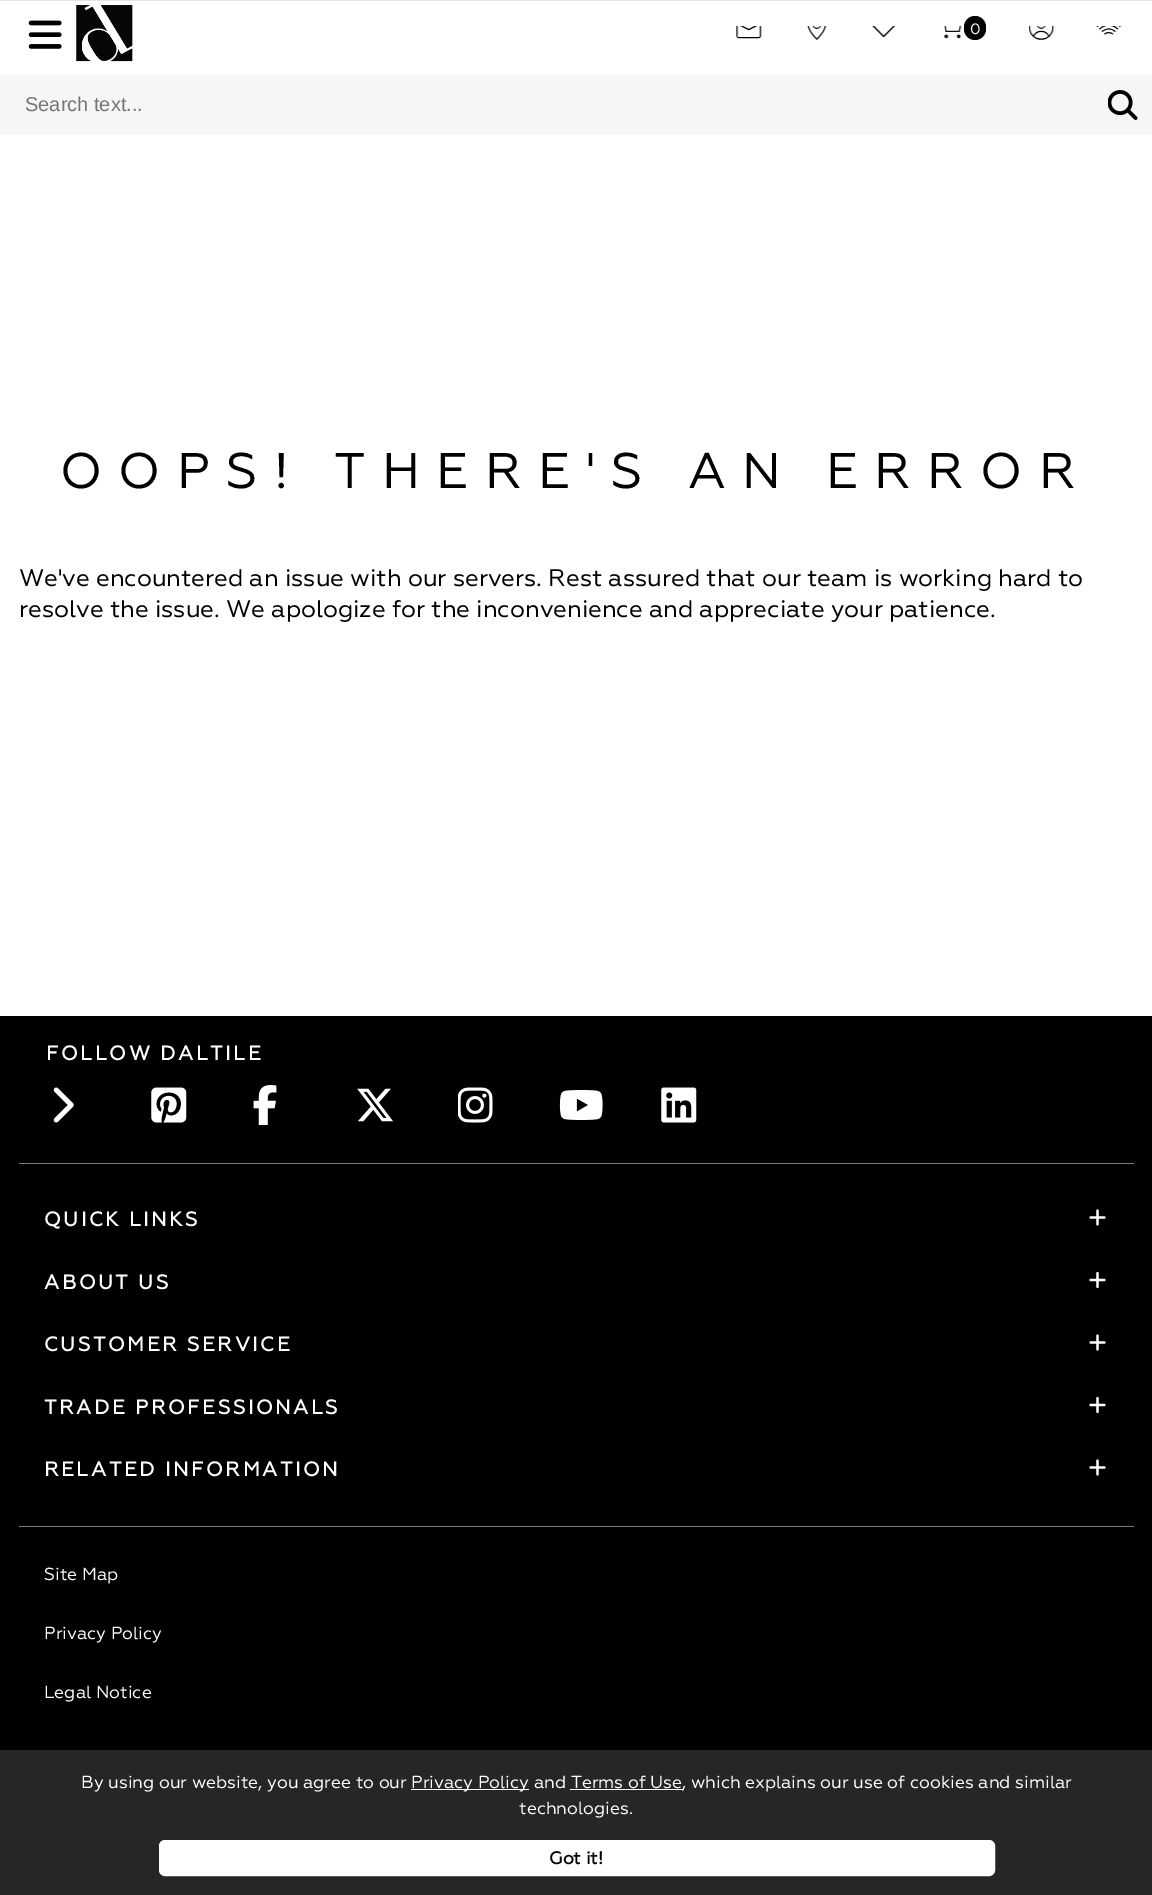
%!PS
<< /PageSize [1152 1895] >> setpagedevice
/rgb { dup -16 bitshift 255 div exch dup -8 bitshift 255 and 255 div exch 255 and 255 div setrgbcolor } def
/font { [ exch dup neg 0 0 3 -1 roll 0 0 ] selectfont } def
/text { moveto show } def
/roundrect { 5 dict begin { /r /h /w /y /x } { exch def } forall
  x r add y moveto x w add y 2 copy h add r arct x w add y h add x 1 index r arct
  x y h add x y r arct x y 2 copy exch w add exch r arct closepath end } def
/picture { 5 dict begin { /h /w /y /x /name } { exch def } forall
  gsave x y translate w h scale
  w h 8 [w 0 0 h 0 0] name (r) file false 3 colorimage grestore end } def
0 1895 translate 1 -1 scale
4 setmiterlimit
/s1 { /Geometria-Regular 15 font 16#FFFFFF rgb } def
/s2 { /LiberationSans-Regular 20 font 16#757575 rgb } def
/s3 { /Geometria-Regular 24 font 16#000000 rgb } def
/s4 { /Geometria-Regular 17.5 font 16#FFFFFF rgb } def
/s5 { /Geometria-Bold 17.5 font 16#000000 rgb } def
16#FFFFFF rgb
0 0 1152 1895 rectfill
(pic1.raw) 28 20 34 29 picture
(pic2.raw) 76 5 57 57 picture
(pic3.raw) 736 26 26 13 picture
(pic4.raw) 807 26 20 14 picture
(pic5.raw) 872 26 24 12 picture
(pic6.raw) 944 26 18 13 picture
16#000000 rgb
964 16 22 24 11 roundrect fill
s1
(0) 970 34 text
(pic7.raw) 1029 26 26 14 picture
(pic8.raw) 1096 26 26 9 picture
16#E5E5E5 rgb
0 0 1152 1 rectfill
16#F6F6F6 rgb
0 75 1093 60 2.5 roundrect fill
s2
(Search text...) 25 111 text
16#F6F6F6 rgb
1093 75 59 60 rectfill
(pic9.raw) 1108 90 30 30 picture
/Geometria-Regular 50 font
16#000000 rgb
60 488 moveto 16.25 0 (OOPS! THERE'S AN ERROR) ashow
s3
(We've encountered an issue with our servers. Rest assured that our team is working hard to) 19 586 text
(resolve the issue. We apologize for the inconvenience and appreciate your patience.) 19 617 text
0 1016 1152 734 rectfill
/Geometria-Bold 20 font
16#FFFFFF rgb
46 1060 moveto 2.5 0 (FOLLOW DALTILE) ashow
(pic10.raw) 53 1087 21 36 picture
(pic11.raw) 151 1087 36 36 picture
(pic12.raw) 253 1085 24 40 picture
(pic13.raw) 357 1088 36 34 picture
(pic14.raw) 458 1087 35 36 picture
(pic15.raw) 559 1090 44 30 picture
(pic16.raw) 661 1087 36 36 picture
16#7B7B7C rgb
19 1163 1115 1 rectfill
19 1526 1115 1 rectfill
16#FFFFFF rgb
44 1226 moveto 2.5 0 (QUICK LINKS) ashow
(pic17.raw) 1089 1209 17 17 picture
44 1289 moveto 2.5 0 (ABOUT US) ashow
(pic18.raw) 1089 1271 17 18 picture
44 1351 moveto 2.5 0 (CUSTOMER SERVICE) ashow
(pic17.raw) 1089 1334 17 17 picture
44 1414 moveto 2.5 0 (TRADE PROFESSIONALS) ashow
(pic18.raw) 1089 1396 17 18 picture
44 1476 moveto 2.5 0 (RELATED INFORMATION) ashow
(pic17.raw) 1089 1459 17 17 picture
s4
(Site Map) 44 1580 text
(Privacy Policy) 44 1639 text
(Legal Notice) 44 1698 text
16#262626 rgb
0 1750 1152 145 rectfill
s4
(By using our website, you agree to our) 81 1788 text
411 1789 118 1 rectfill
(Privacy Policy and Terms of Use) 411 1788 text
570 1789 113 1 rectfill
(, which explains our use of cookies and similar) 682 1788 text
(technologies.) 519 1814 text
159.5 1840.5 835 35 5.5 roundrect gsave fill grestore
stroke
s5
(Got it!) 549 1864 text
showpage
